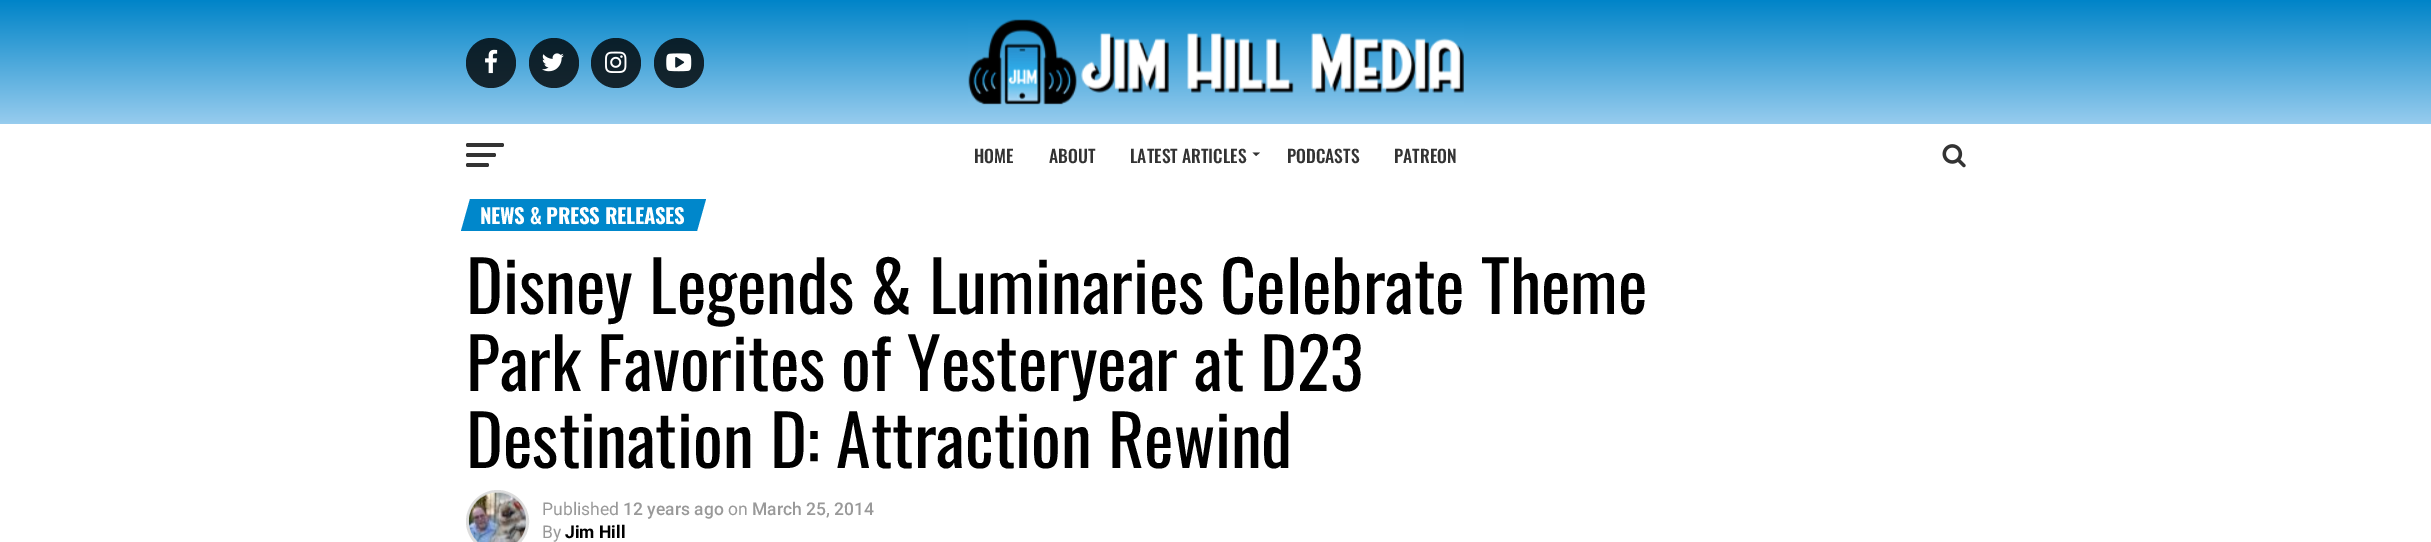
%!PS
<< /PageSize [2431 542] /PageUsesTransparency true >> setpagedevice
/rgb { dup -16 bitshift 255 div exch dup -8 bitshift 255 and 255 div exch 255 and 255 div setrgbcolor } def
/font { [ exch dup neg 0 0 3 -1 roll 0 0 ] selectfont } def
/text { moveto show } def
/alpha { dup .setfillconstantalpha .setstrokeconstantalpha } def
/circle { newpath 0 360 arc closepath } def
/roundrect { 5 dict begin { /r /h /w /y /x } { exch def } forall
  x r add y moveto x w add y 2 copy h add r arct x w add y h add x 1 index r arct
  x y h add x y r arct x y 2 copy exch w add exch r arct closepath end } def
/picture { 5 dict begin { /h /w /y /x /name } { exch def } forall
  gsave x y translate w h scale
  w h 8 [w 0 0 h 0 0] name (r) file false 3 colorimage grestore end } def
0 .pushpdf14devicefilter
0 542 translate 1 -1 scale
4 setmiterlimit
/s1 { /Oswald-Medium 17.5 font 16#333333 rgb } def
/s2 { /Oswald-Regular 70 font 16#000000 rgb } def
/s3 { /Roboto-Regular 17.5 font 16#999999 rgb } def
/s4 { /Roboto-Medium 17.5 font 16#999999 rgb } def
/s5 { /Roboto-Bold 17.5 font 16#000000 rgb } def
16#FFFFFF rgb
0 0 2431 542 rectfill
gsave 0 0 moveto 2431 0 lineto 2431 124 lineto 0 124 lineto closepath clip newpath
<< /ShadingType 2 /ColorSpace /DeviceRGB /Coords [1216 0 1216 124] /Extend [true true] /Function << /FunctionType 2 /Domain [0 1] /C0 [0 0.518 0.784] /C1 [0.592 0.8 0.933] /N 1 >> >> shfill grestore
0.8 alpha
16#000000 rgb
491 63 25 circle fill
1 alpha
(pic1.raw) 485 49 13 25 picture
0.8 alpha
554 63 25 circle fill
1 alpha
(pic2.raw) 542 53 22 19 picture
0.8 alpha
616 63 25 circle fill
1 alpha
(pic3.raw) 605 51 22 22 picture
0.8 alpha
679 63 25 circle fill
1 alpha
(pic4.raw) 666 53 26 19 picture
(pic5.raw) 968 19 496 86 picture
16#333333 rgb
466 143 38 4 2 roundrect fill
466 153 30 4 2 roundrect fill
466 163 23 4 2 roundrect fill
s1
(HOME) 974 163 text
(ABOUT) 1049 163 text
(LATEST ARTICLES) 1130 163 text
1252.5 152.5 moveto 1260 152.5 lineto 1256 156 lineto closepath fill
(PODCASTS) 1287 163 text
(PATREON) 1394 163 text
(pic6.raw) 1942 144 24 24 picture
16#0087CB rgb
470 199 moveto 706 199 lineto 697 231 lineto 461 231 lineto closepath fill
/Oswald-Bold 20.75 font
16#FFFFFF rgb
480 224 moveto -0.3 0 (NEWS & PRESS RELEASES) ashow
s2
(Disney Legends & Luminaries Celebrate Theme) 466 314 text
(Park Favorites of Yesteryear at D23) 466 391 text
(Destination D: Attraction Rewind) 466 468 text
16#DDDDDD rgb
3 setlinewidth
497.5 521.5 30 circle stroke
(pic7.raw) 468 492 58 50 picture
s3
(Published) 542 515 text
s4
(12 years ago) 623 515 text
s3
(on) 728 515 text
s4
(March 25, 2014) 752 515 text
s3
(By) 542 538 text
s5
(Jim Hill) 565 538 text
.poppdf14devicefilter showpage
